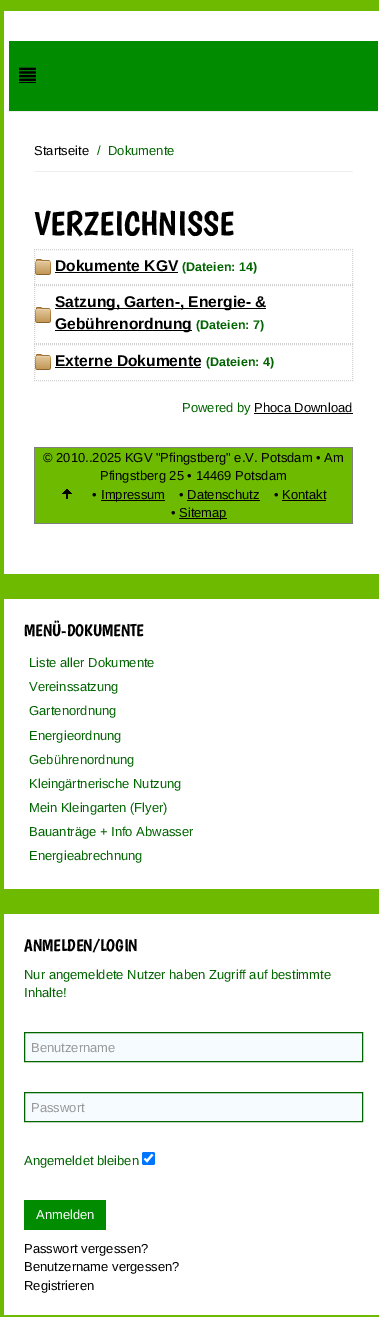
%!PS
<< /PageSize [379 1317] >> setpagedevice
/rgb { dup -16 bitshift 255 div exch dup -8 bitshift 255 and 255 div exch 255 and 255 div setrgbcolor } def
/font { [ exch dup neg 0 0 3 -1 roll 0 0 ] selectfont } def
/text { moveto show } def
/roundrect { 5 dict begin { /r /h /w /y /x } { exch def } forall
  x r add y moveto x w add y 2 copy h add r arct x w add y h add x 1 index r arct
  x y h add x y r arct x y 2 copy exch w add exch r arct closepath end } def
/picture { 5 dict begin { /h /w /y /x /name } { exch def } forall
  gsave x y translate w h scale
  w h 8 [w 0 0 h 0 0] name (r) file false 3 colorimage grestore end } def
0 1317 translate 1 -1 scale
4 setmiterlimit
/s1 { /LiberationSans-Regular 13 font 16#000000 rgb } def
/s2 { /LiberationSans-Regular 13 font 16#006400 rgb } def
/s3 { /Boogaloo-Regular 34 font 16#000000 rgb } def
/s4 { /LiberationSans-Bold 15.6 font 16#000000 rgb } def
/s5 { /LiberationSans-Bold 12.5 font 16#006400 rgb } def
/s6 { /Boogaloo-Regular 17 font 16#000000 rgb } def
/s7 { /LiberationSans-Regular 13 font 16#999999 rgb } def
/s8 { /LiberationSans-Regular 13 font 16#FFFFFF rgb } def
16#6EBA00 rgb
0 0 379 1317 rectfill
16#FFFFFF rgb
4 11 375 563 rectfill
16#008B00 rgb
9 41 369 70 rectfill
16#EEEEEE rgb
9 111 369 1 rectfill
(pic1.raw) 19 67 17 14 picture
16#000000 rgb
19 82 17 1 rectfill
16#EEEEEE rgb
34 171 319 1 rectfill
s1
(Startseite) 34 155 text
s2
(/) 97 155 text
(Dokumente) 108 155 text
s3
(VERZEICHNISSE) 34 235 text
(pic2.raw) 35 259 16 16 picture
16#D1D1D1 rgb
[1 1] 0 setdash
34 249.5 moveto 353 249.5 lineto stroke
352.5 249 moveto 352.5 285 lineto stroke
34 284.5 moveto 353 284.5 lineto stroke
34.5 249 moveto 34.5 285 lineto stroke
s4
(Dokumente KGV) 55 271 text
55 272 123 1 rectfill
s5
(\(Dateien: 14\)) 182 271 text
(pic2.raw) 35 307 16 16 picture
16#D1D1D1 rgb
34 285.5 moveto 353 285.5 lineto stroke
352.5 285 moveto 352.5 344 lineto stroke
34 343.5 moveto 353 343.5 lineto stroke
34.5 285 moveto 34.5 344 lineto stroke
16#000000 rgb
55 308 211 1 rectfill
s4
(Satzung, Garten-, Energie- &) 55 307 text
55 330 137 1 rectfill
(Gebührenordnung) 55 329 text
s5
(\(Dateien: 7\)) 196 329 text
(pic2.raw) 35 354 16 16 picture
16#D1D1D1 rgb
34 344.5 moveto 353 344.5 lineto stroke
352.5 344 moveto 352.5 381 lineto stroke
34 380.5 moveto 353 380.5 lineto stroke
34.5 344 moveto 34.5 381 lineto stroke
s4
(Externe Dokumente) 55 366 text
55 367 146 1 rectfill
s5
(\(Dateien: 4\)) 206 366 text
s2
(Powered by) 182 412 text
s1
(Phoca Download) 254 412 text
254 413 99 1 rectfill
16#808080 rgb
34 447 319 1 rectfill
352 447 1 77 rectfill
34 523 319 1 rectfill
34 447 1 77 rectfill
16#6EBA00 rgb
35 448 317 75 rectfill
s1
(© 2010..2025 KGV "Pfingstberg" e.V. Potsdam • Am) 43 462 text
(Pfingstberg 25 • 14469 Potsdam) 100 480 text
(pic3.raw) 62 489 10 10 picture
(•) 92 499 text
101 500 64 1 rectfill
(Impressum) 101 499 text
(• Datenschutz) 179 499 text
187 500 73 1 rectfill
(• Kontakt) 274 499 text
282 500 44 1 rectfill
(•) 171 517 text
179 518 48 1 rectfill
(Sitemap) 179 517 text
16#FFFFFF rgb
4 599 375 290 rectfill
s6
(MENÜ-DOKUMENTE) 24 636 text
s2
(Liste aller Dokumente) 29 667 text
(Vereinssatzung) 29 691 text
(Gartenordnung) 29 715 text
(Energieordnung) 29 740 text
(Gebührenordnung) 29 764 text
(Kleingärtnerische Nutzung) 29 788 text
(Mein Kleingarten \(Flyer\)) 29 812 text
(Bauanträge + Info Abwasser) 29 836 text
(Energieabrechnung) 29 860 text
16#FFFFFF rgb
4 914 375 401 rectfill
s6
(ANMELDEN/LOGIN) 24 951 text
s2
(Nur angemeldete Nutzer haben Zugriff auf bestimmte) 24 979 text
(Inhalte!) 24 997 text
16#F5FBFE rgb
24.5 1032.5 moveto 362.5 1032.5 lineto 362.5 1061.5 lineto 24.5 1061.5 lineto closepath gsave fill grestore
16#006400 rgb
[] 0 setdash
stroke
s7
(Benutzername) 31 1052 text
16#F5FBFE rgb
24.5 1092.5 moveto 362.5 1092.5 lineto 362.5 1121.5 lineto 24.5 1121.5 lineto closepath gsave fill grestore
16#006400 rgb
stroke
s7
(Passwort) 31 1112 text
s2
(Angemeldet bleiben) 24 1165 text
16#0075FF rgb
142 1152 13 13 2 roundrect fill
16#FFFFFF rgb
2.1 setlinewidth
144.5 1158.5 moveto 147 1161 lineto 152.5 1154.5 lineto stroke
16#008B00 rgb
24 1200 82 30 rectfill
s8
(Anmelden) 36 1219 text
s1
(Passwort vergessen?) 24 1253 text
(Benutzername vergessen?) 24 1271 text
(Registrieren) 24 1290 text
showpage
